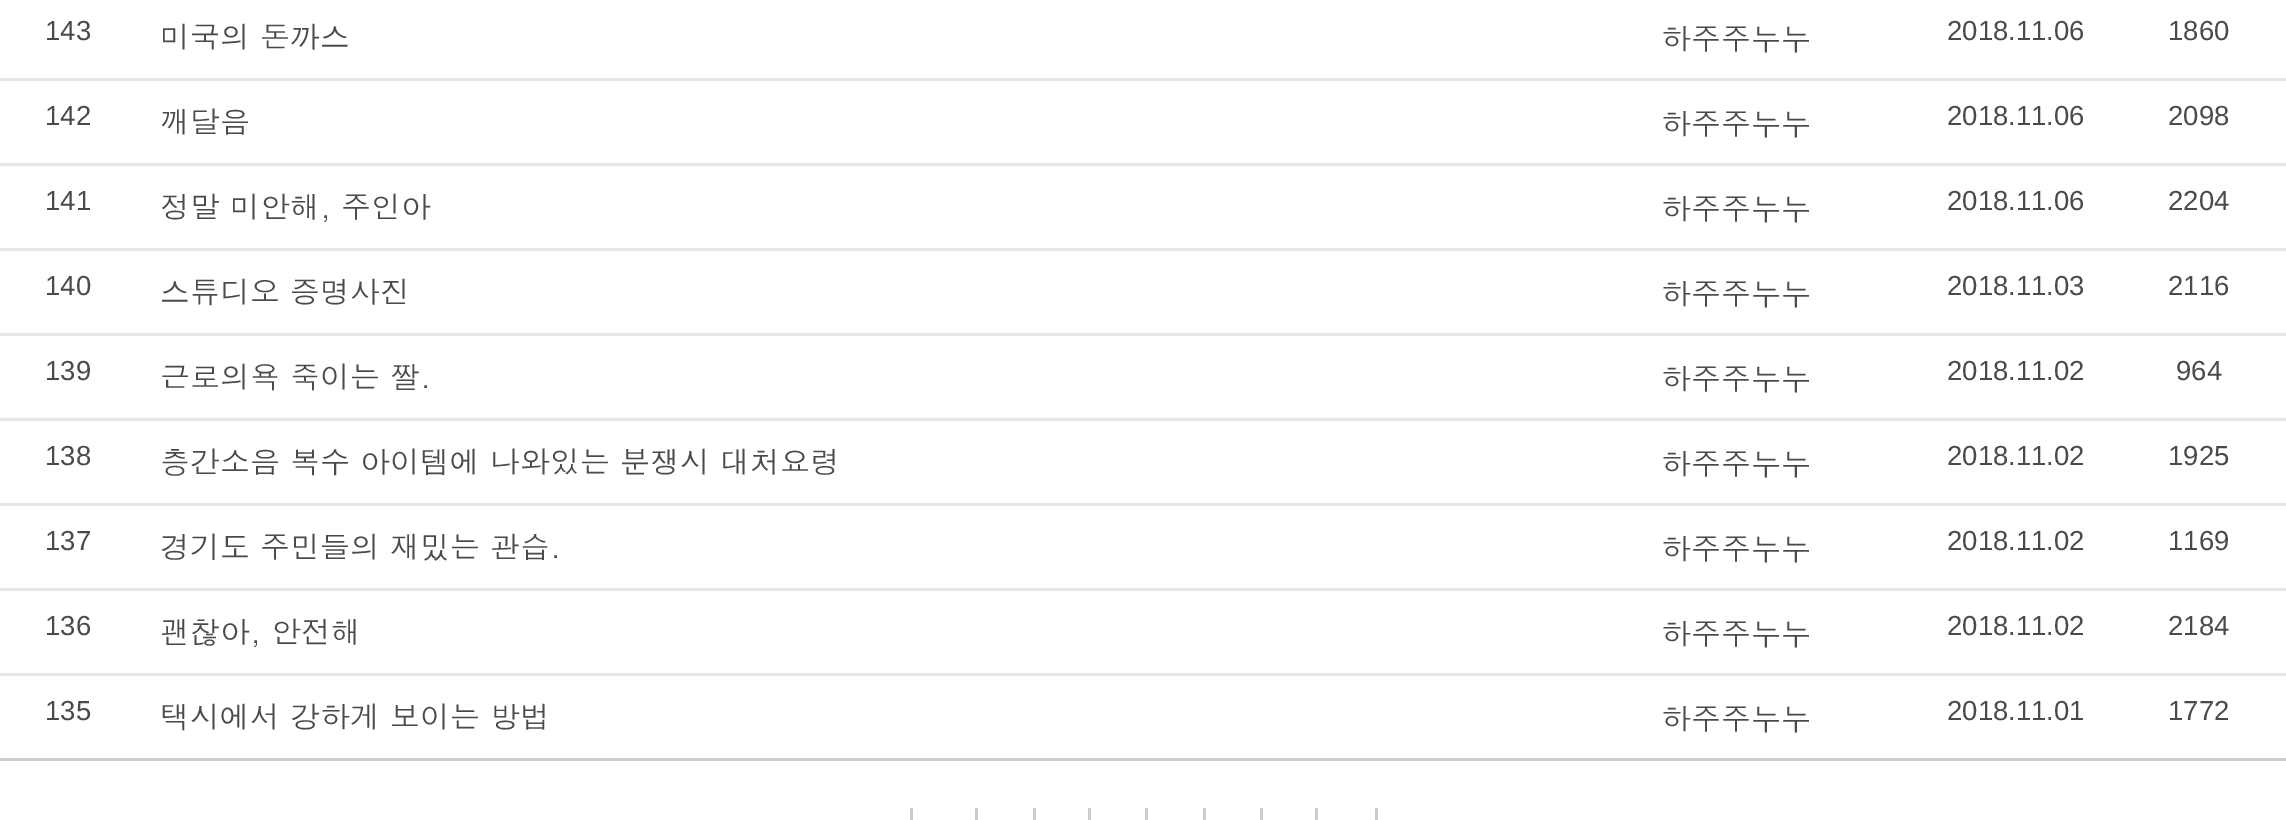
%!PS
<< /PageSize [2286 820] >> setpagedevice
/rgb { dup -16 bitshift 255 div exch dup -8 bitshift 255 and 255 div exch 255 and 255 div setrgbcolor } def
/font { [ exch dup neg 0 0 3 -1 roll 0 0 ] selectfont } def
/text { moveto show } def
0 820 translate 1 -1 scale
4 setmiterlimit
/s1 { /LiberationSans-Regular 27.5 font 16#4A4A4A rgb } def
/s2 { /Dotum-Regular 30 font 16#4A4A4A rgb } def
16#FFFFFF rgb
0 0 2286 820 rectfill
16#CDCDCD rgb
0 758 2286 3 rectfill
16#E6E6E6 rgb
0 78 2286 3 rectfill
s1
(143) 45 40 text
s2
(미국의 돈까스) 160 48 text
(하주주누누) 1661 50 text
s1
(2018.11.06) 1947 40 text
(1860) 2168 40 text
16#E6E6E6 rgb
0 163 2286 3 rectfill
s1
(142) 45 125 text
s2
(깨달음) 160 133 text
(하주주누누) 1661 135 text
s1
(2018.11.06) 1947 125 text
(2098) 2168 125 text
16#E6E6E6 rgb
0 248 2286 3 rectfill
s1
(141) 45 210 text
s2
(정말 미안해, 주인아) 160 218 text
(하주주누누) 1661 220 text
s1
(2018.11.06) 1947 210 text
(2204) 2168 210 text
16#E6E6E6 rgb
0 333 2286 3 rectfill
s1
(140) 45 295 text
s2
(스튜디오 증명사진) 160 303 text
(하주주누누) 1661 305 text
s1
(2018.11.03) 1947 295 text
(2116) 2168 295 text
16#E6E6E6 rgb
0 418 2286 3 rectfill
s1
(139) 45 380 text
s2
(근로의욕 죽이는 짤.) 160 388 text
(하주주누누) 1661 390 text
s1
(2018.11.02) 1947 380 text
(964) 2176 380 text
16#E6E6E6 rgb
0 503 2286 3 rectfill
s1
(138) 45 465 text
s2
(층간소음 복수 아이템에 나와있는 분쟁시 대처요령) 160 473 text
(하주주누누) 1661 475 text
s1
(2018.11.02) 1947 465 text
(1925) 2168 465 text
16#E6E6E6 rgb
0 588 2286 3 rectfill
s1
(137) 45 550 text
s2
(경기도 주민들의 재밌는 관습.) 160 558 text
(하주주누누) 1661 560 text
s1
(2018.11.02) 1947 550 text
(1169) 2168 550 text
16#E6E6E6 rgb
0 673 2286 3 rectfill
s1
(136) 45 635 text
s2
(괜찮아, 안전해) 160 643 text
(하주주누누) 1661 645 text
s1
(2018.11.02) 1947 635 text
(2184) 2168 635 text
(135) 45 720 text
s2
(택시에서 강하게 보이는 방법) 160 728 text
(하주주누누) 1661 730 text
s1
(2018.11.01) 1947 720 text
(1772) 2168 720 text
16#CCCCCC rgb
910 808 3 12 rectfill
975 808 3 12 rectfill
1033 808 3 12 rectfill
1088 808 3 12 rectfill
1145 808 3 12 rectfill
1203 808 3 12 rectfill
1260 808 3 12 rectfill
1375 808 3 12 rectfill
1315 808 3 12 rectfill
showpage
